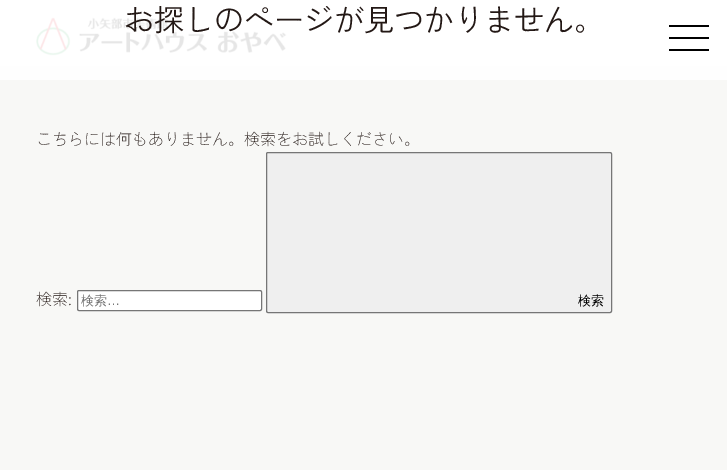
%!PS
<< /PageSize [727 470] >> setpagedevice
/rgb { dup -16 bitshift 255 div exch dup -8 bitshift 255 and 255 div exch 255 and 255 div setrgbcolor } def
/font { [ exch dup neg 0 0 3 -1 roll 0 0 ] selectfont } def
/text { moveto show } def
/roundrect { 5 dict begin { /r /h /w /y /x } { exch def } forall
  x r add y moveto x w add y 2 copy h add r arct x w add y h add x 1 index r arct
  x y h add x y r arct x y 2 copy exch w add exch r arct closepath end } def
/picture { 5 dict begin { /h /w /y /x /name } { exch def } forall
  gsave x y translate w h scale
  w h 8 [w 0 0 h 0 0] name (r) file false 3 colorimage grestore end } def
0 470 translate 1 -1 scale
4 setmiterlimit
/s1 { /ZenKakuGothicAntique-Regular 30 font 16#231815 rgb } def
/s2 { /ZenKakuGothicAntique-Light 16 font 16#231815 rgb } def
/s3 { /WenQuanYiZenHei-Medium 13 font 16#757575 rgb } def
/s4 { /LiberationSans-Regular 13 font 16#757575 rgb } def
/s5 { /WenQuanYiZenHei-Medium 13 font 16#000000 rgb } def
16#F8F8F6 rgb
0 0 727 470 rectfill
16#FEFEFE rgb
0 66 727 14 rectfill
16#FFFFFF rgb
0 0 727 66 rectfill
(pic1.raw) 36 17 251 39 picture
s1
(お探しのページが見つかりません。) 124 31 text
s2
(こちらには何もありません。検索をお試しください。) 36 145 text
(検索:) 36 305 text
16#FFFFFF rgb
77.5 290.5 184 20 1.5 roundrect gsave fill grestore
16#767676 rgb
stroke
s3
(検索) 81 305 text
s4
(…) 107 305 text
16#EFEFEF rgb
266.5 152.5 345 160 1.5 roundrect gsave fill grestore
16#767676 rgb
stroke
s5
(検索) 578 305 text
669 37 40 2 rectfill
669 25 40 2 rectfill
669 49 40 2 rectfill
showpage
